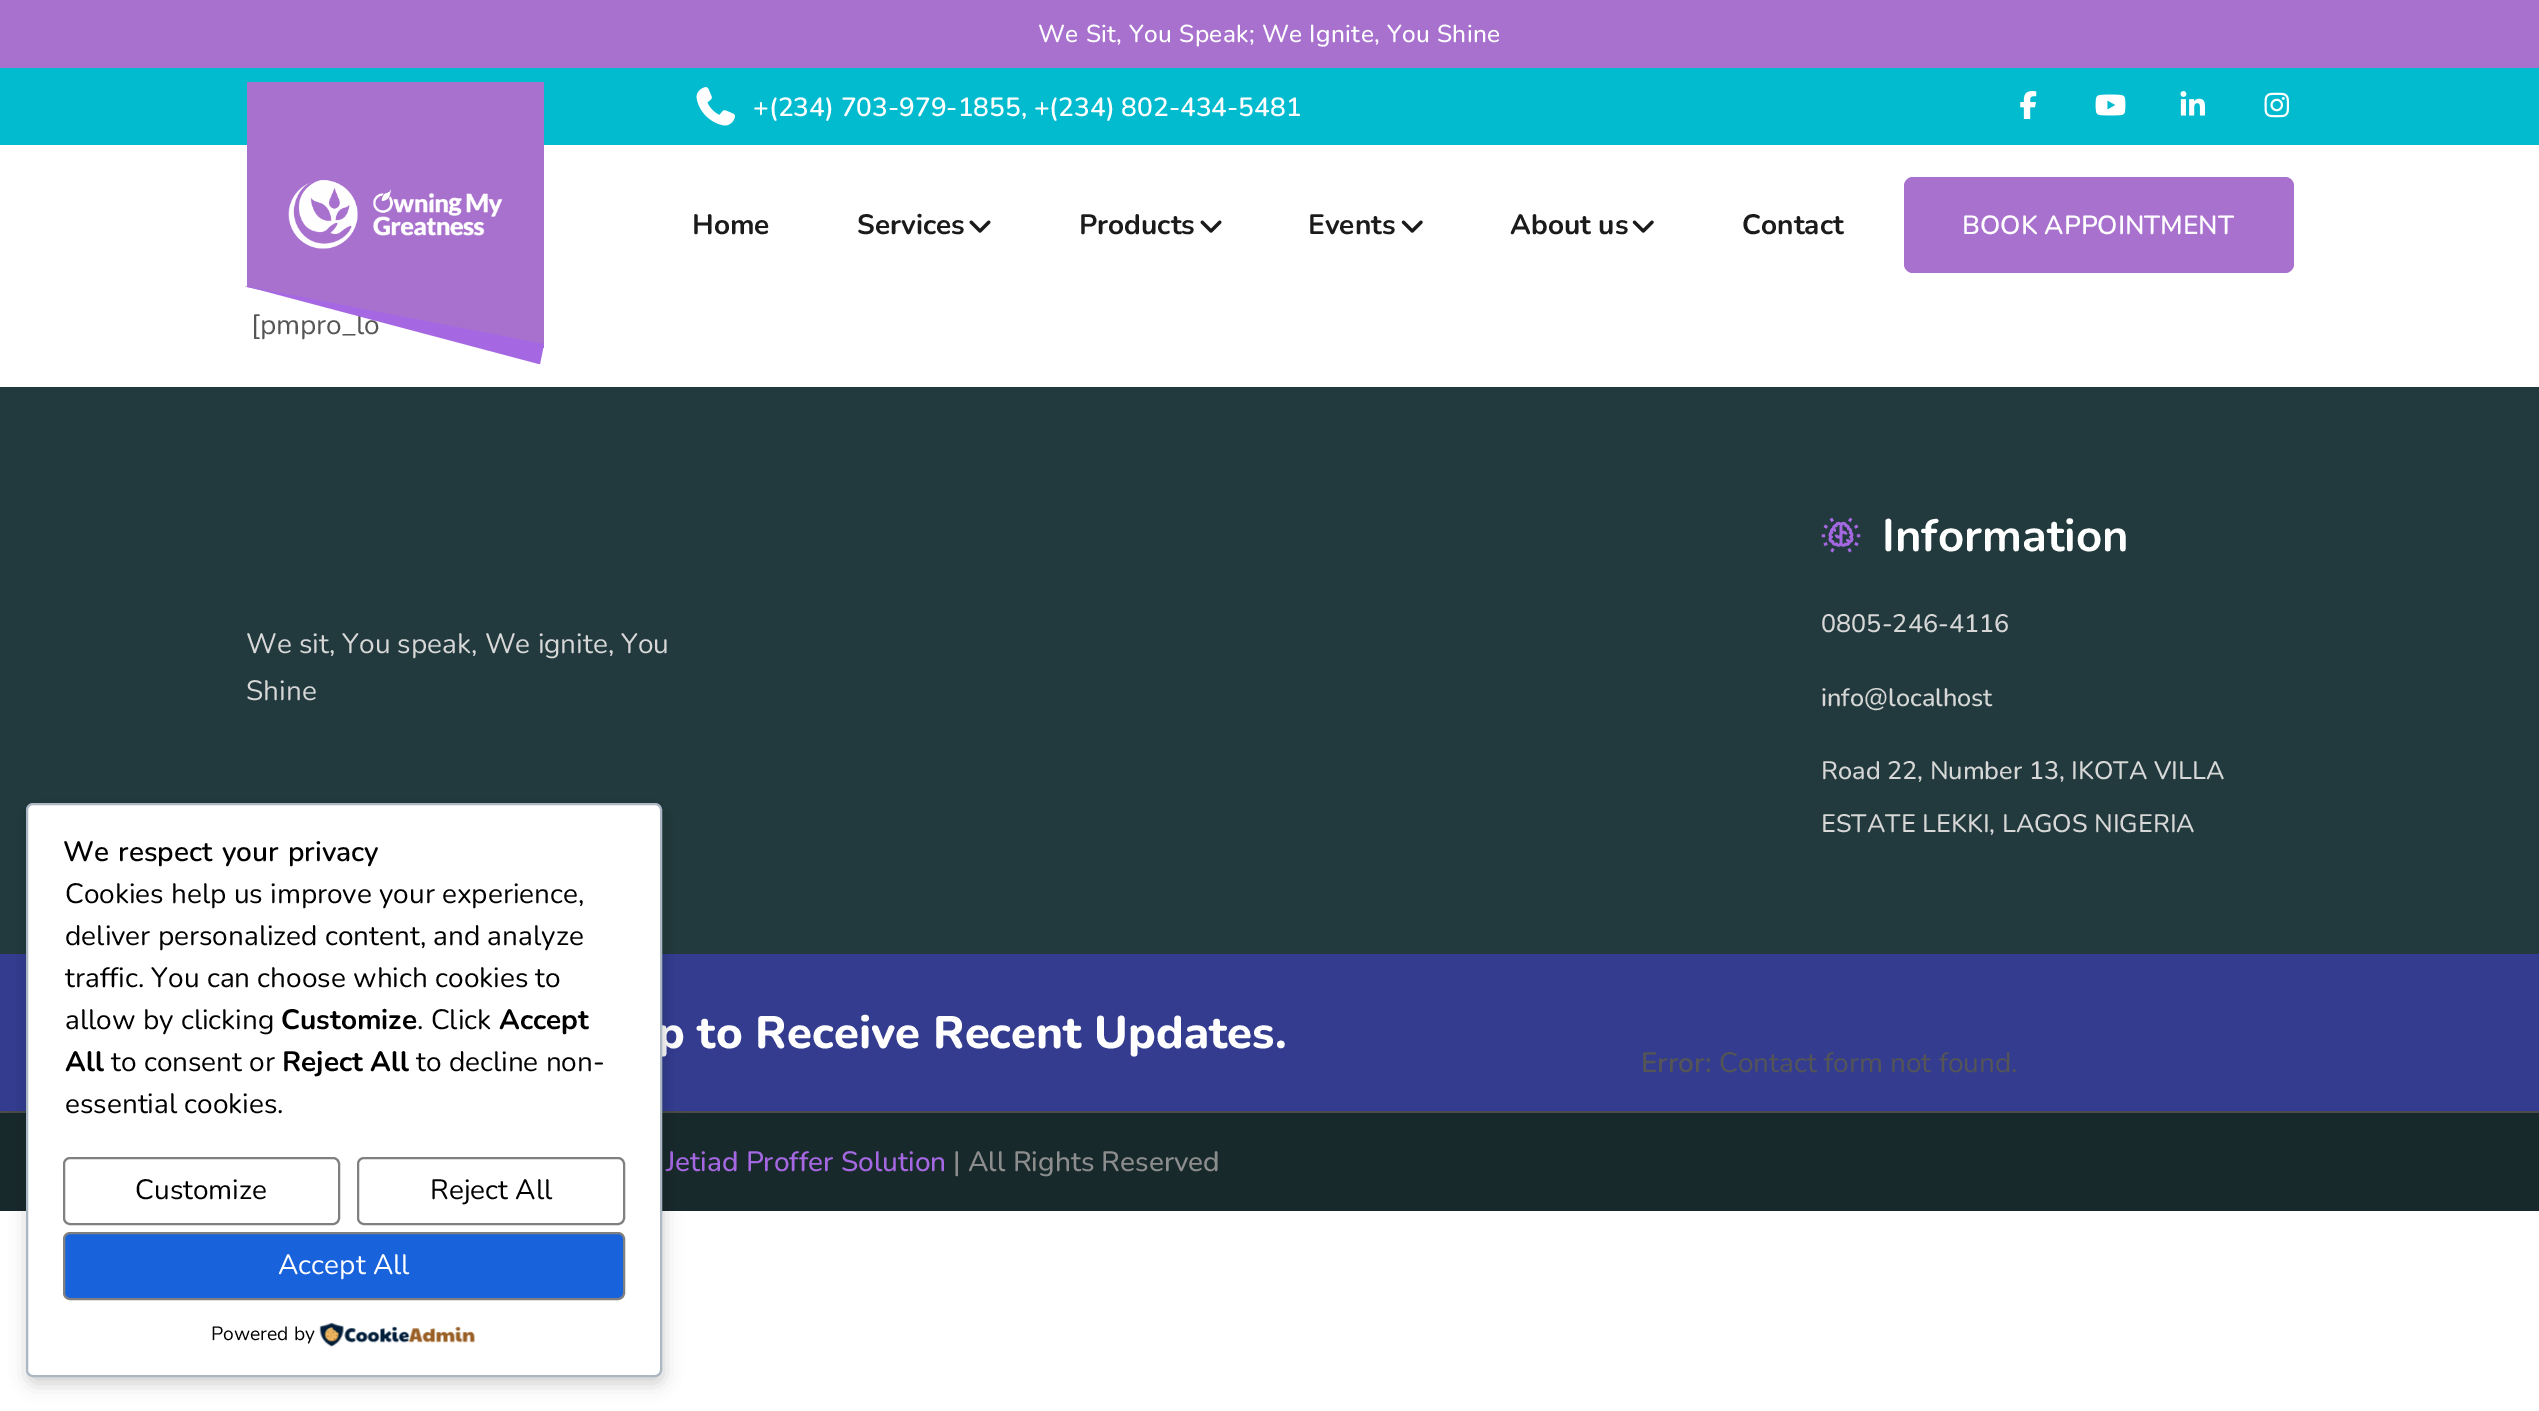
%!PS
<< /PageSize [2539 1411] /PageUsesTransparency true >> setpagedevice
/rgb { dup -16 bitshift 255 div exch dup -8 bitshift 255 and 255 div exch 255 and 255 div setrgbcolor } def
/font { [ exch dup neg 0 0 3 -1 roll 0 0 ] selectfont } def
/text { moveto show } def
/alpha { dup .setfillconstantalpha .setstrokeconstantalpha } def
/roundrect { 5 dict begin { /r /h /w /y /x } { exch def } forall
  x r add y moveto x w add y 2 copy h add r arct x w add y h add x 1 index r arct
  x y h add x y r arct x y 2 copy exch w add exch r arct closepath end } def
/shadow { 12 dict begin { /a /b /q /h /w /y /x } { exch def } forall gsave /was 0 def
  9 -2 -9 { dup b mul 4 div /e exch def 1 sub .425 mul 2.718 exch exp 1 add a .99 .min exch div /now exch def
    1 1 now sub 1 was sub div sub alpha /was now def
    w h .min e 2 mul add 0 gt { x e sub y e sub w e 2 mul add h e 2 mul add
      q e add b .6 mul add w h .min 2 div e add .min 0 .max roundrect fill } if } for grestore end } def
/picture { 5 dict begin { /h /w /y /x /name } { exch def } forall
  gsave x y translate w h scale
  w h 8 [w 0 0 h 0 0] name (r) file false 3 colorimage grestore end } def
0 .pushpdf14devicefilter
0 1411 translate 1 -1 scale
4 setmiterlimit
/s1 { /Nunito-SemiBold 26.25 font 16#FFFFFF rgb } def
/s2 { /Nunito-Regular 28 font 16#555555 rgb } def
/s3 { /Nunito-Bold 28 font 16#1B1B1B rgb } def
/s4 { /Nunito-Regular 28 font 16#D7D7D7 rgb } def
/s5 { /Nunito-Bold 45.5 font 16#FFFFFF rgb } def
/s6 { /Nunito-Medium 25.25 font 16#D7D7D7 rgb } def
/s7 { /Nunito-ExtraBold 45.5 font 16#FFFFFF rgb } def
/s8 { /Nunito-SemiBold 28 font 16#555555 rgb } def
/s9 { /Nunito-Medium 28 font 16#A568E2 rgb } def
/s10 { /Nunito-Medium 28 font 16#8D8D8D rgb } def
/s11 { /Nunito-Regular 28 font 16#000000 rgb } def
/s12 { /Nunito-Bold 28 font 16#000000 rgb } def
/s13 { /Nunito-Regular 28 font 16#FFFFFF rgb } def
/s14 { /Nunito-Regular 19.25 font 16#000000 rgb } def
16#FFFFFF rgb
0 0 2539 1411 rectfill
16#A971CE rgb
0 0 2539 68 rectfill
/Nunito-Medium 24.5 font
16#FFFFFF rgb
1038 42 moveto 0.35 0 (We Sit, You Speak; We Ignite, You Shine) ashow
16#02BBCE rgb
0 68 2539 77 rectfill
(pic1.raw) 696 87 39 39 picture
s1
(+\(234\) 703-979-1855, +\(234\) 802-434-5481) 753 116 text
(pic2.raw) 2020 91 17 28 picture
(pic3.raw) 2095 94 31 22 picture
(pic4.raw) 2180 91 25 25 picture
(pic5.raw) 2264 92 25 26 picture
16#A971CE rgb
247 82 297 205 rectfill
(pic6.raw) 288 179 215 70 picture
s2
([pmpro_lo) 251 334 text
16#A971CE rgb
544 348 moveto 544 287 lineto 247 287 lineto closepath fill
16#A568E2 rgb
539 364 moveto 540 364 lineto 544 344 lineto 245 286 lineto closepath fill
s3
(Home) 692 234 text
(Services) 857 234 text
(pic7.raw) 969 220 22 13 picture
(Products) 1079 234 text
(pic7.raw) 1200 220 22 13 picture
(Events) 1308 234 text
(pic8.raw) 1401 220 22 13 picture
(About us) 1510 234 text
(pic8.raw) 1632 220 22 13 picture
(Contact) 1742 234 text
16#A971CE rgb
1904 177 390 96 9 roundrect fill
s1
(BOOK APPOINTMENT) 1962 234 text
16#223A3D rgb
0 387 2539 567 rectfill
s4
(We sit, You speak, We ignite, You) 246 653 text
(Shine) 246 700 text
(pic9.raw) 1821 517 40 36 picture
s5
(Information) 1882 551 text
s6
(0805-246-4116) 1821 632 text
(info@localhost) 1821 706 text
(Road 22, Number 13, IKOTA VILLA) 1821 779 text
(ESTATE LEKKI, LAGOS NIGERIA) 1821 832 text
16#333C8F rgb
0 954 2539 157 rectfill
s7
(p to Receive Recent Updates.) 657 1048 text
s8
(Error:) 1641 1072 text
s2
(Contact form not found.) 1719 1072 text
16#18292B rgb
0 1113 2539 98 rectfill
16#4B4B4B rgb
0 1111 2539 2 rectfill
s9
(Jetiad Proffer Solution) 666 1171 text
s10
(| All Rights Reserved) 953 1171 text
16#000000 rgb
28 809 635 574 7 9 0.2 shadow
16#FFFFFF rgb
27 804 634 572 6 roundrect gsave fill grestore
16#ABB8C3 rgb
2 setlinewidth
stroke
/Nunito-SemiBold 28 font
16#000000 rgb
63 861 moveto 2 0 32 (We respect your privacy) widthshow
s11
(Cookies help us improve your experience,) 65 903 text
(deliver personalized content, and analyze) 65 945 text
(traffic. You can choose which cookies to) 65 987 text
(allow by clicking) 65 1029 text
s12
(Customize) 281 1029 text
s11
(. Click) 417 1029 text
s12
(Accept) 499 1029 text
(All) 65 1071 text
s11
(to consent or) 111 1071 text
s12
(Reject All) 282 1071 text
s11
(to decline non-) 416 1071 text
(essential cookies.) 65 1113 text
16#808080 rgb
64 1158 275 66 6 roundrect stroke
s11
(Customize) 135 1199 text
16#808080 rgb
358 1158 266 66 6 roundrect stroke
s11
(Reject All) 430 1199 text
16#1863DC rgb
64 1233 560 66 6 roundrect gsave fill grestore
16#808080 rgb
stroke
s13
(Accept All) 278 1274 text
s14
(Powered by) 211 1340 text
(pic10.raw) 319 1322 156 25 picture
.poppdf14devicefilter showpage
